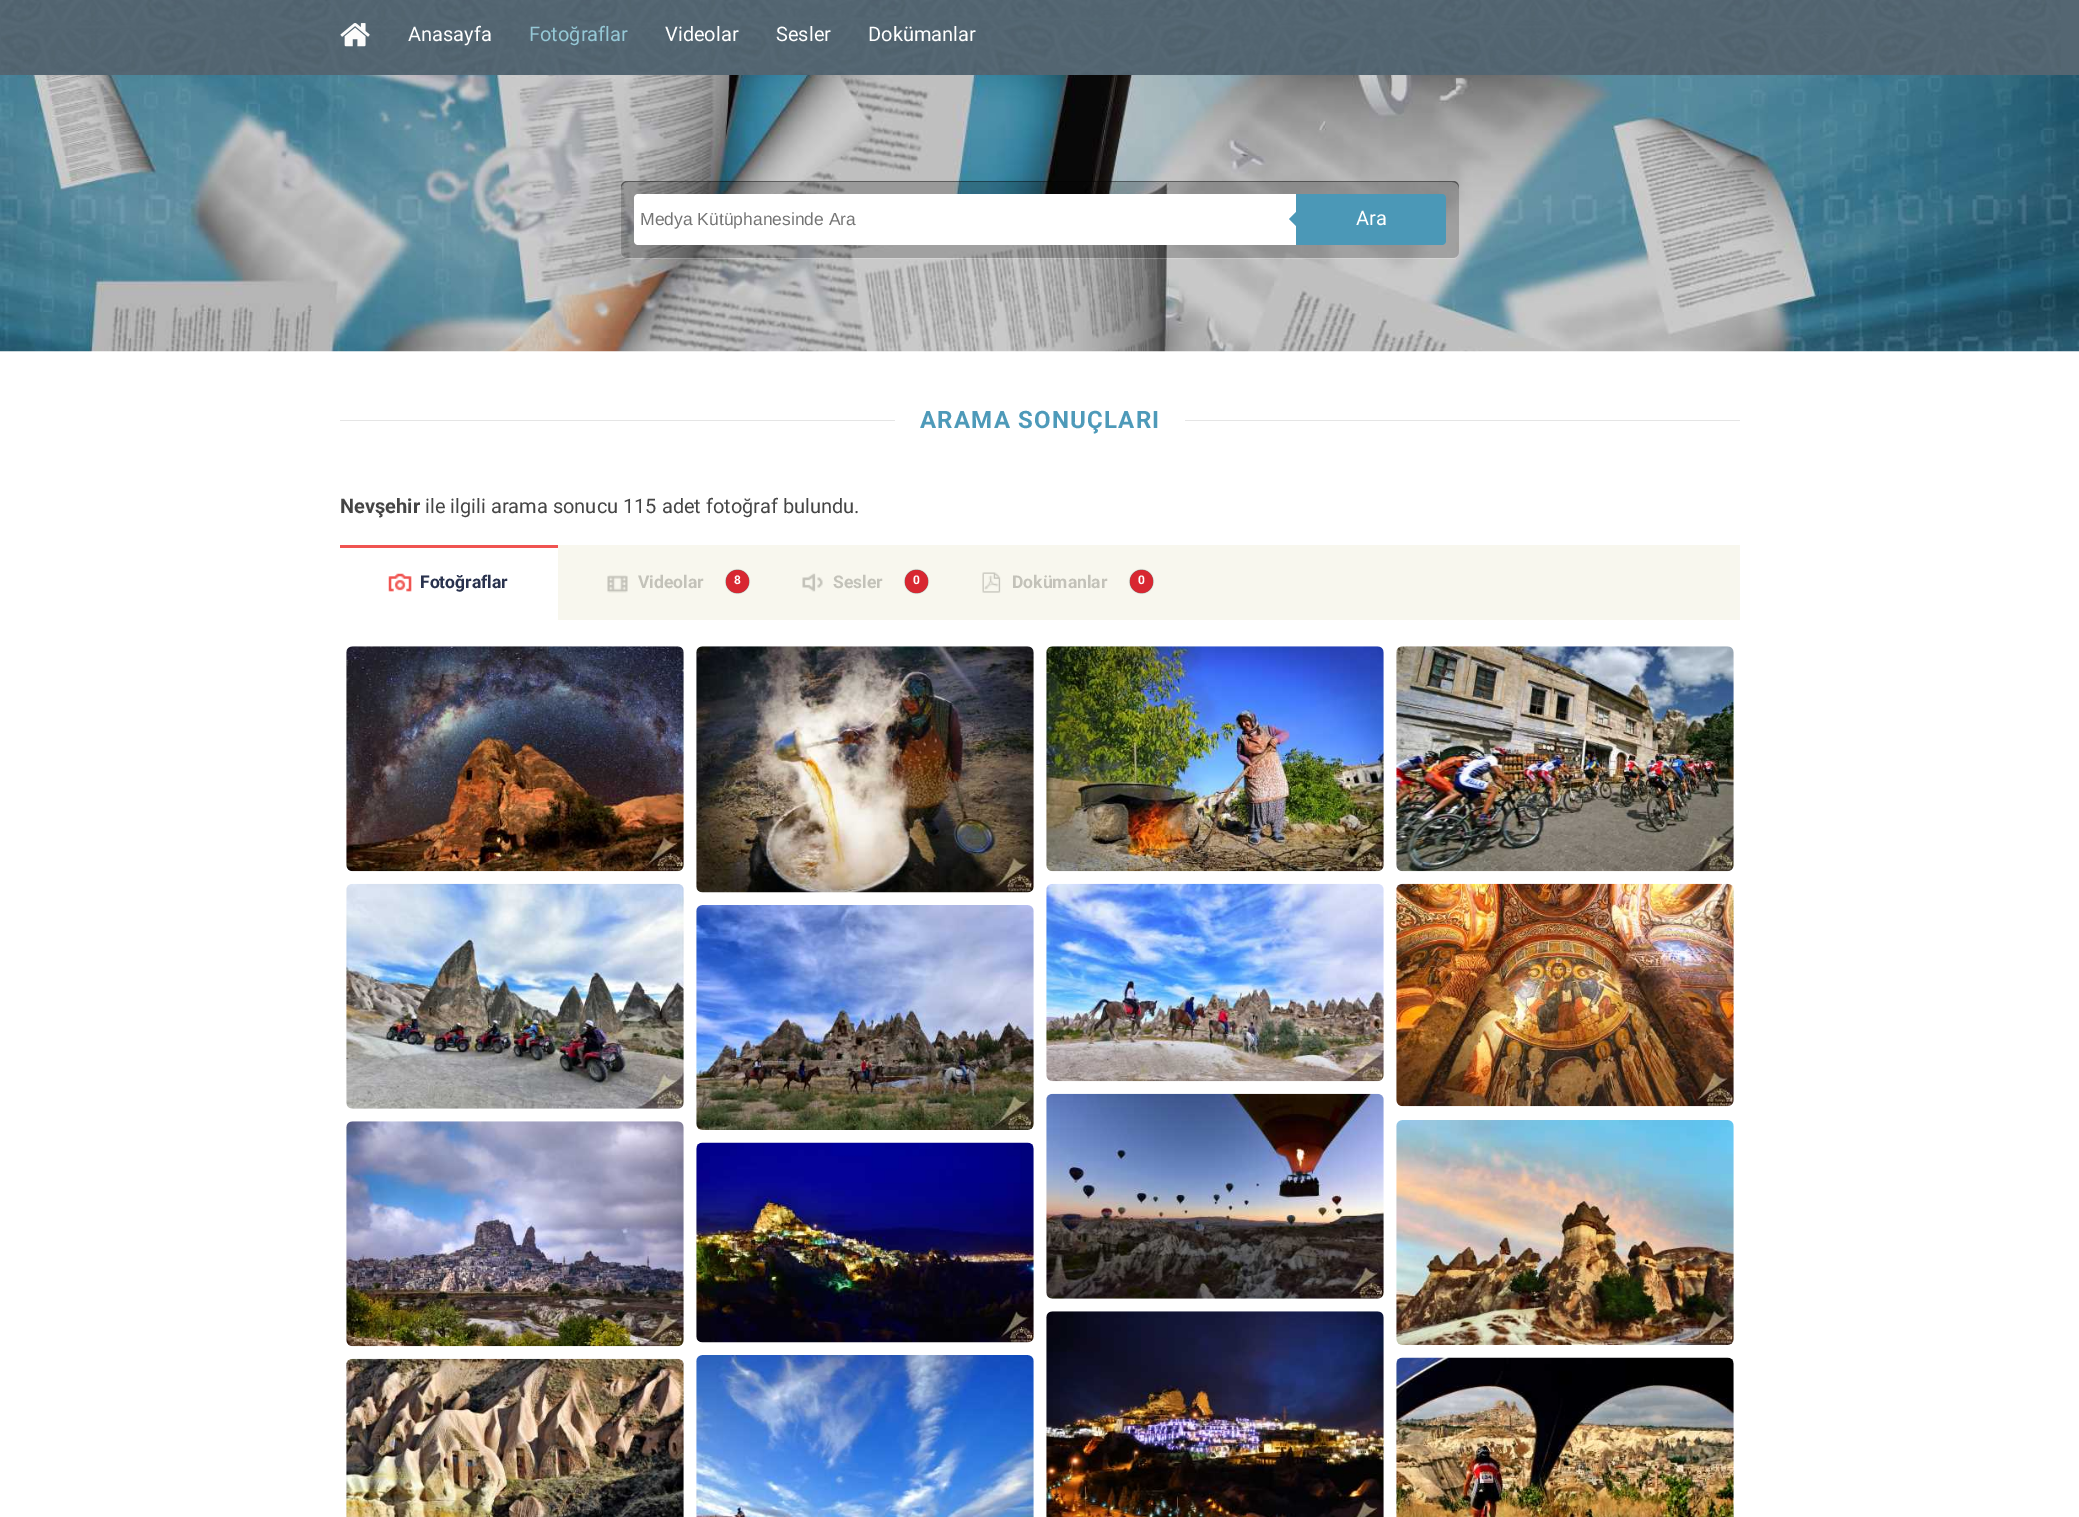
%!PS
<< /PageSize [2079 1517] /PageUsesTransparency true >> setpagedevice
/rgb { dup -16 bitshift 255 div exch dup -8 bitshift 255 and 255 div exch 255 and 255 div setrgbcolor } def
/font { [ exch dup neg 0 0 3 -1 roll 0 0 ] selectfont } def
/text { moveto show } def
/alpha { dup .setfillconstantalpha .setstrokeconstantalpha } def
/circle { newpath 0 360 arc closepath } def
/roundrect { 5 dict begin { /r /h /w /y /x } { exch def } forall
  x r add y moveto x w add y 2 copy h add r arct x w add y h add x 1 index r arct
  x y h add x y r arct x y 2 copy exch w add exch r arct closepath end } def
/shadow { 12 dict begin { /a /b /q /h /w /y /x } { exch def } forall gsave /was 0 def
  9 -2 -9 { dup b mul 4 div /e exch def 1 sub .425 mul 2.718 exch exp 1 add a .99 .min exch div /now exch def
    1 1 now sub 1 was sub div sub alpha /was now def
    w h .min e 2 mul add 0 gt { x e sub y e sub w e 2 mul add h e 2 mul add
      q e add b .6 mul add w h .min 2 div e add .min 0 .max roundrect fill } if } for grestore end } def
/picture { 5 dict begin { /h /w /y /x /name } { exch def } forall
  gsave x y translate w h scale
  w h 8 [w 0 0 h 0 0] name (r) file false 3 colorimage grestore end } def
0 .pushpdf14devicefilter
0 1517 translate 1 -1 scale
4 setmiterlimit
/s1 { /Roboto-Regular 20 font 16#FFFFFF rgb } def
/s2 { /Roboto-Regular 20 font 16#95C8D6 rgb } def
/s3 { /LiberationSans-Regular 17.5 font 16#757575 rgb } def
/s4 { /Roboto-Bold 20 font 16#454545 rgb } def
/s5 { /Roboto-Regular 20 font 16#454545 rgb } def
/s6 { /Roboto-Bold 17.5 font 16#29324E rgb } def
/s7 { /Roboto-Bold 17.5 font 16#C3C2B9 rgb } def
/s8 { /Roboto-Bold 12 font 16#FFFFFF rgb } def
16#FFFFFF rgb
0 0 2079 1517 rectfill
(pic1.raw) 0 75 2079 277 picture
16#546672 rgb
0 0 2079 75 rectfill
(pic2.raw) 1 0 2060 75 picture
(pic3.raw) 340 23 30 24 picture
s1
(Anasayfa) 408 41 text
s2
(Fotoğraflar) 529 41 text
s1
(Videolar) 665 41 text
(Sesler) 776 41 text
(Dokümanlar) 868 41 text
0.2 alpha
621 187 moveto 621 253 lineto 621 256 624 259 627 259 curveto 1453 259 lineto 1456 259 1459 256 1459 253 curveto 1459 187 lineto 1459 251 lineto 1459 255 1456 258 1452 258 curveto 628 258 lineto 624 258 621 255 621 251 curveto closepath fill
16#000000 rgb
621 181 838 77 6 roundrect fill
0.4 alpha
628 182 moveto 1452 182 lineto 1456 182 1459 185 1459 189 curveto 1459 185 1458 181 1453 181 curveto 627 181 lineto 622 181 621 185 621 189 curveto 621 185 624 182 628 182 curveto closepath fill
1 alpha
16#FFFFFF rgb
638 194 moveto 1296 194 lineto 1296 245 lineto 638 245 lineto 636 245 634 243 634 241 curveto 634 198 lineto 634 196 636 194 638 194 curveto closepath fill
s3
(Medya Kütüphanesinde Ara) 640 225 text
16#4B98B7 rgb
1296 194 moveto 1442 194 lineto 1444 194 1446 196 1446 198 curveto 1446 241 lineto 1446 243 1444 245 1442 245 curveto 1296 245 lineto closepath fill
1299 209 moveto 1299 229 lineto 1289 219 lineto closepath fill
s1
(Ara) 1356 225 text
16#E5E5E5 rgb
340 420 1400 1 rectfill
16#FFFFFF rgb
895 420 290 1 rectfill
/Roboto-Bold 24 font
16#4E9AB9 rgb
920 428 moveto 1.25 0 (ARAMA SONUÇLARI) ashow
s4
(Nevşehir) 340 513 text
s5
(ile ilgili arama sonucu 115 adet fotoğraf bulundu.) 425 513 text
16#F8F7EE rgb
558 545 1182 75 rectfill
16#F05451 rgb
340 545 218 3 rectfill
(pic4.raw) 388 573 24 19 picture
s6
(Fotoğraflar) 420 588 text
(pic5.raw) 607 575 21 18 picture
s7
(Videolar) 638 588 text
16#333333 rgb
726 570 23 23 11.5 0.5 1 shadow
16#D82731 rgb
737.5 581.5 11.5 circle fill
s8
(8) 734 584 text
(pic6.raw) 802 573 21 19 picture
s7
(Sesler) 833 588 text
16#333333 rgb
905 570 23 23 11.5 0.5 1 shadow
16#D82731 rgb
916.5 581.5 11.5 circle fill
s8
(0) 913 584 text
(pic7.raw) 982 572 19 21 picture
s7
(Dokümanlar) 1012 588 text
16#333333 rgb
1130 570 23 23 11.5 0.5 1 shadow
16#D82731 rgb
1141.5 581.5 11.5 circle fill
s8
(0) 1138 584 text
(pic8.raw) 346 646 338 226 picture
(pic9.raw) 696 646 338 247 picture
(pic10.raw) 1046 646 338 226 picture
(pic11.raw) 1396 646 338 226 picture
(pic12.raw) 346 883 338 226 picture
(pic13.raw) 696 905 338 225 picture
(pic14.raw) 1046 883 338 199 picture
(pic15.raw) 1396 883 338 224 picture
(pic16.raw) 346 1121 338 226 picture
(pic17.raw) 696 1142 338 201 picture
(pic18.raw) 1046 1093 338 206 picture
(pic19.raw) 1396 1120 338 225 picture
(pic20.raw) 346 1358 338 159 picture
(pic21.raw) 696 1355 338 162 picture
(pic22.raw) 1046 1311 338 206 picture
(pic23.raw) 1396 1357 338 160 picture
.poppdf14devicefilter showpage
